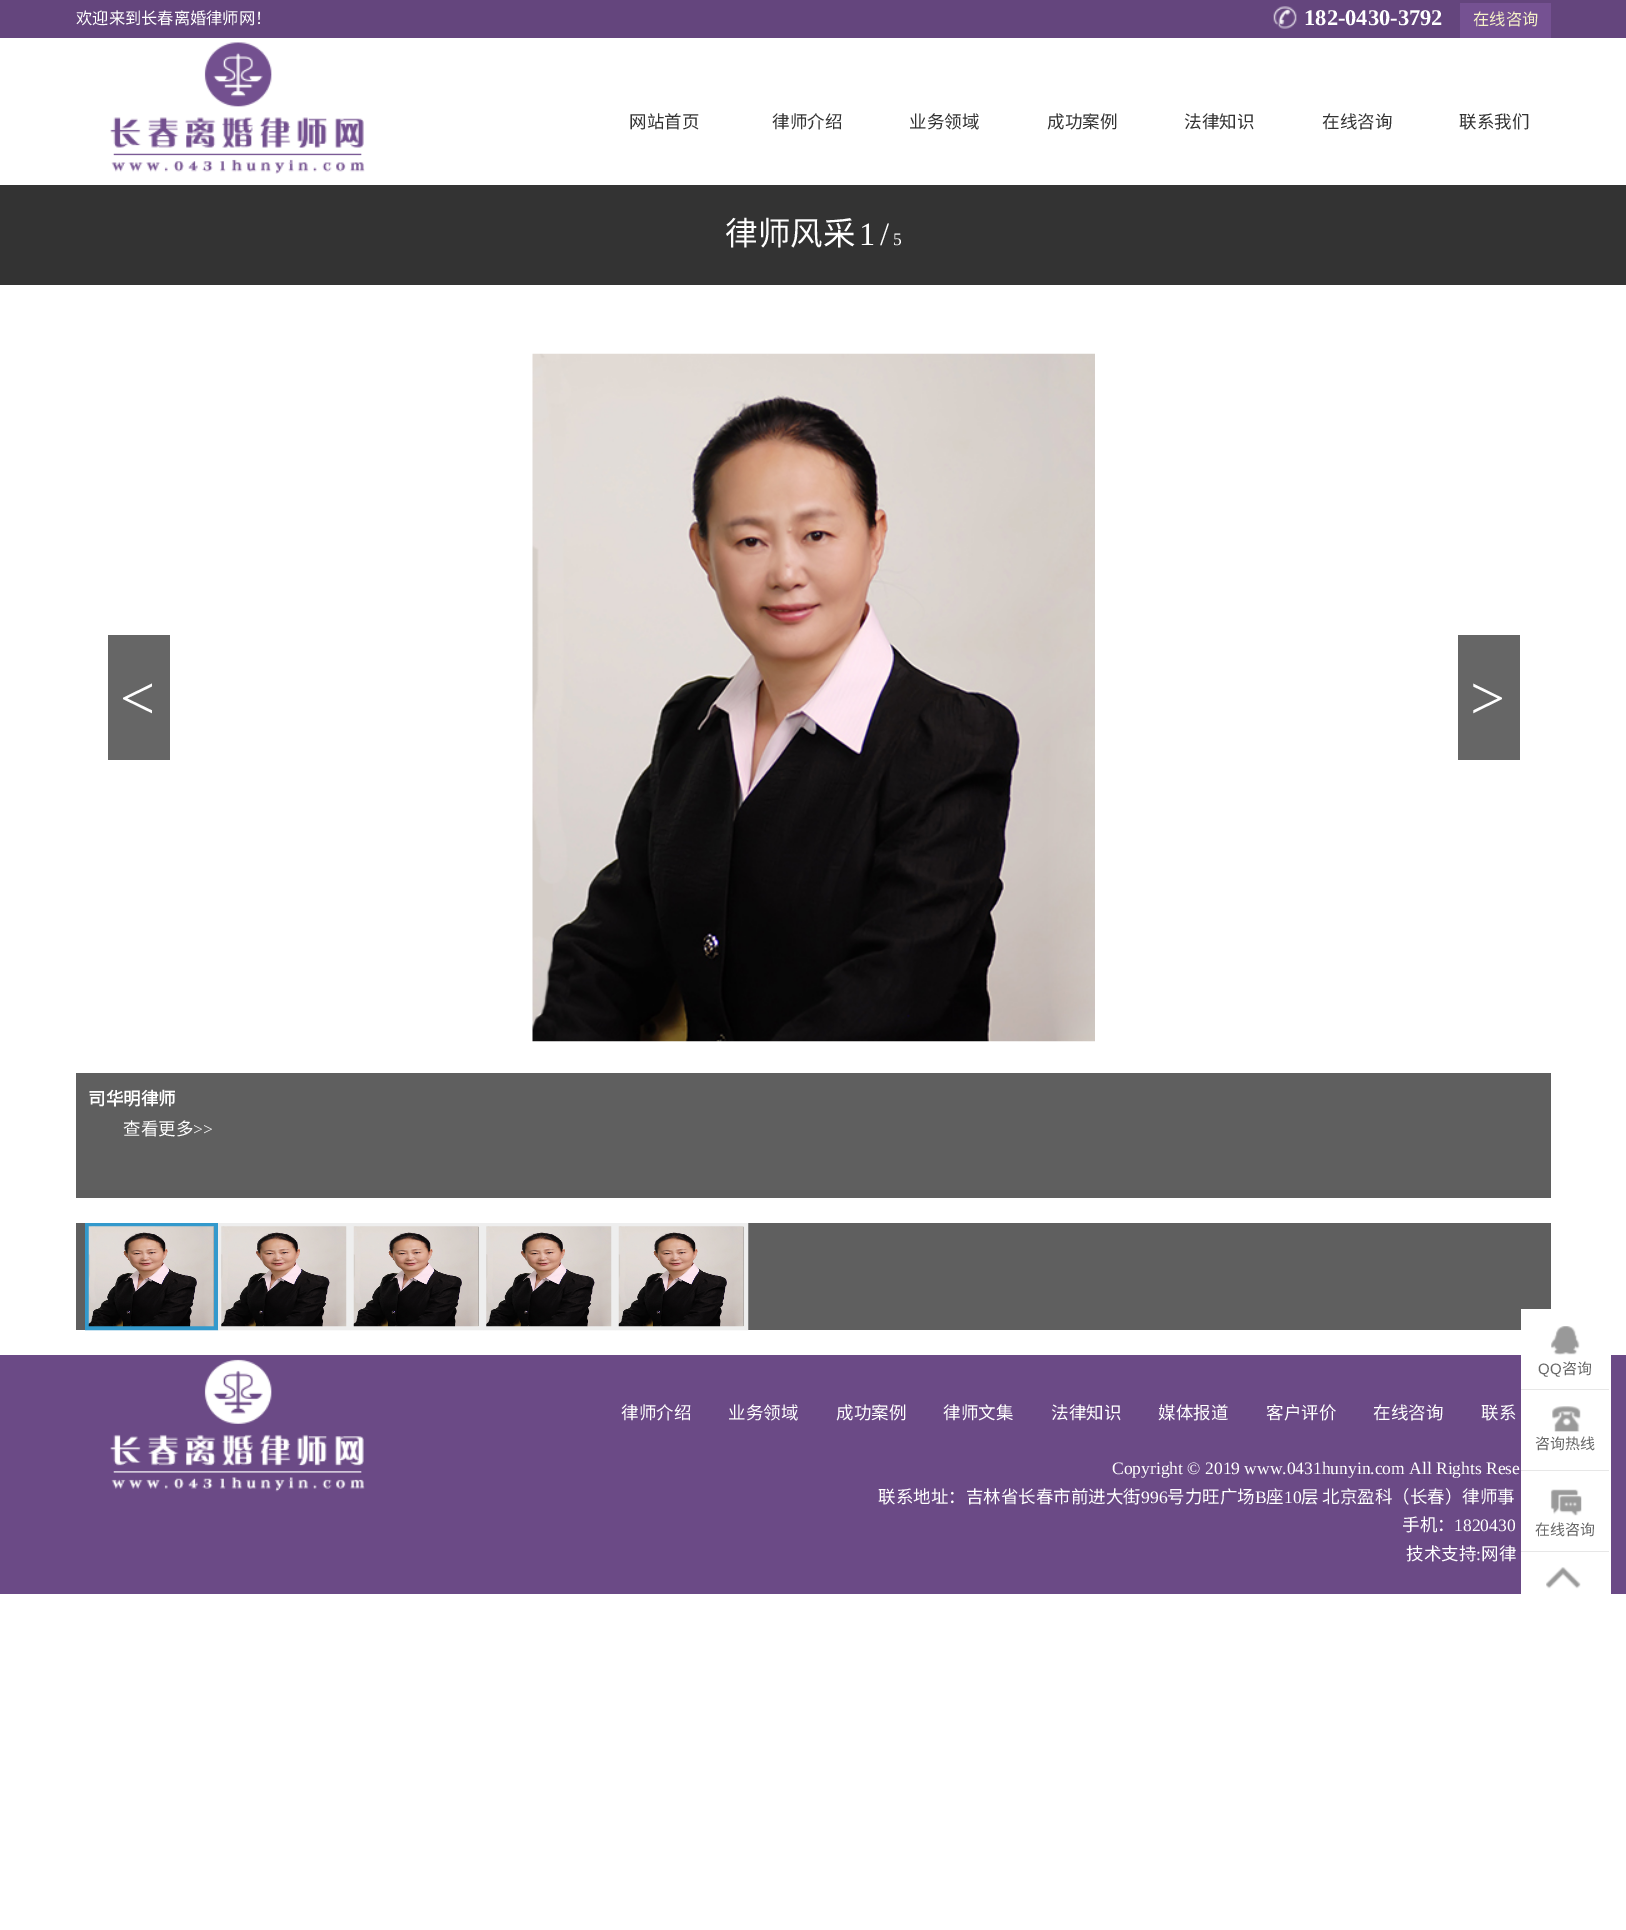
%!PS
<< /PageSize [1626 1930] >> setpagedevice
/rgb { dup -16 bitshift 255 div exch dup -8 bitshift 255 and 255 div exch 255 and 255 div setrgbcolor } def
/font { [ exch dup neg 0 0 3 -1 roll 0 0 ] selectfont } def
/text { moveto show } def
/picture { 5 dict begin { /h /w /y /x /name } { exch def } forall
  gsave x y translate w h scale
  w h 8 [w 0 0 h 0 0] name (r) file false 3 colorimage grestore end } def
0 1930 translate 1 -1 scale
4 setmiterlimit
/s1 { /NotoSansCJKSC-Regular 16.25 font 16#FFFFFF rgb } def
/s2 { /LiberationSerif-Bold 22.5 font 16#FFFFFF rgb } def
/s3 { /NotoSansCJKSC-Regular 16.25 font 16#F6F2C8 rgb } def
/s4 { /NotoSansCJKSC-Regular 17.5 font 16#333333 rgb } def
/s5 { /NotoSansCJKSC-Regular 32.5 font 16#FFFFFF rgb } def
/s6 { /LiberationSerif-Regular 32.5 font 16#FFFFFF rgb } def
/s7 { /LiberationSerif-Regular 17.5 font 16#FFFFFF rgb } def
/s8 { /LiberationSerif-Regular 62 font 16#FFFFFF rgb } def
/s9 { /NotoSansCJKSC-Bold 17.5 font 16#FFFFFF rgb } def
/s10 { /NotoSansCJKSC-Regular 17.5 font 16#FFFFFF rgb } def
/s11 { /LiberationSans-Regular 15 font 16#676767 rgb } def
/s12 { /NotoSansCJKSC-Regular 15 font 16#676767 rgb } def
16#FFFFFF rgb
0 0 1626 1930 rectfill
16#64457D rgb
0 0 1626 38 rectfill
s1
(欢迎来到长春离婚律师网！) 76 24 text
(pic1.raw) 1273 6 24 23 picture
s2
(182-0430-3792) 1304 25 text
16#755192 rgb
1460 3 91 35 rectfill
s3
(在线咨询) 1473 25 text
(pic2.raw) 110 42 255 132 picture
s4
(网站首页) 629 128 text
(律师介绍) 772 128 text
(业务领域) 909 128 text
(成功案例) 1047 128 text
(法律知识) 1184 128 text
(在线咨询) 1322 128 text
(联系我们) 1459 128 text
0 185 1626 100 rectfill
s5
(律师风采) 725 245 text
s6
(1) 859 245 text
(/) 880 245 text
s7
(5) 893 245 text
16#666666 rgb
108 635 62 125 rectfill
s8
(<) 120 719 text
(pic3.raw) 532 353 563 689 picture
16#666666 rgb
1458 635 62 125 rectfill
s8
(>) 1470 719 text
16#5F5F5F rgb
76 1073 1475 125 rectfill
s9
(司华明律师) 88 1105 text
s10
(查看更多) 123 1135 text
s7
(>>) 193 1135 text
16#5F5F5F rgb
76 1223 1475 107 rectfill
16#3399CC rgb
4 setlinewidth
87 1225 129 103 rectstroke
(pic4.raw) 88 1226 126 101 picture
16#EEEEEE rgb
220 1225 128 103 rectstroke
(pic5.raw) 221 1226 126 101 picture
352 1225 129 103 rectstroke
(pic6.raw) 353 1226 126 101 picture
485 1225 128 103 rectstroke
(pic5.raw) 486 1226 126 101 picture
617 1225 129 103 rectstroke
(pic6.raw) 618 1226 126 101 picture
16#6B4A86 rgb
0 1355 1626 239 rectfill
(pic7.raw) 110 1359 255 133 picture
s10
(律师介绍) 621 1419 text
(业务领域) 728 1419 text
(成功案例) 836 1419 text
(律师文集) 943 1419 text
(法律知识) 1051 1419 text
(媒体报道) 1158 1419 text
(客户评价) 1266 1419 text
(在线咨询) 1373 1419 text
(联系) 1481 1419 text
s7
(Copyright © 2019 www.0431hunyin.com All Rights Rese) 1112 1474 text
s10
(联系地址：吉林省长春市前进大街) 878 1503 text
s7
(996) 1141 1503 text
s10
(号力旺广场) 1167 1503 text
s7
(B) 1255 1503 text
s10
(座) 1266 1503 text
s7
(10) 1284 1503 text
s10
(层 北京盈科（长春）律师事) 1301 1503 text
(手机：) 1402 1531 text
s7
(1820430) 1454 1531 text
s10
(技术支持) 1406 1560 text
s7
(:) 1476 1560 text
s10
(网律) 1481 1560 text
1521 1309 90 285 rectfill
16#E7E7E7 rgb
1521 1389 88 1 rectfill
(pic8.raw) 1551 1326 29 29 picture
s11
(QQ) 1538 1374 text
s12
(咨询) 1562 1374 text
16#E7E7E7 rgb
1521 1470 88 1 rectfill
(pic9.raw) 1552 1406 29 26 picture
s12
(咨询热线) 1535 1449 text
16#E7E7E7 rgb
1521 1551 88 1 rectfill
(pic10.raw) 1550 1489 32 27 picture
s12
(在线咨询) 1535 1535 text
(pic11.raw) 1546 1567 35 22 picture
showpage
